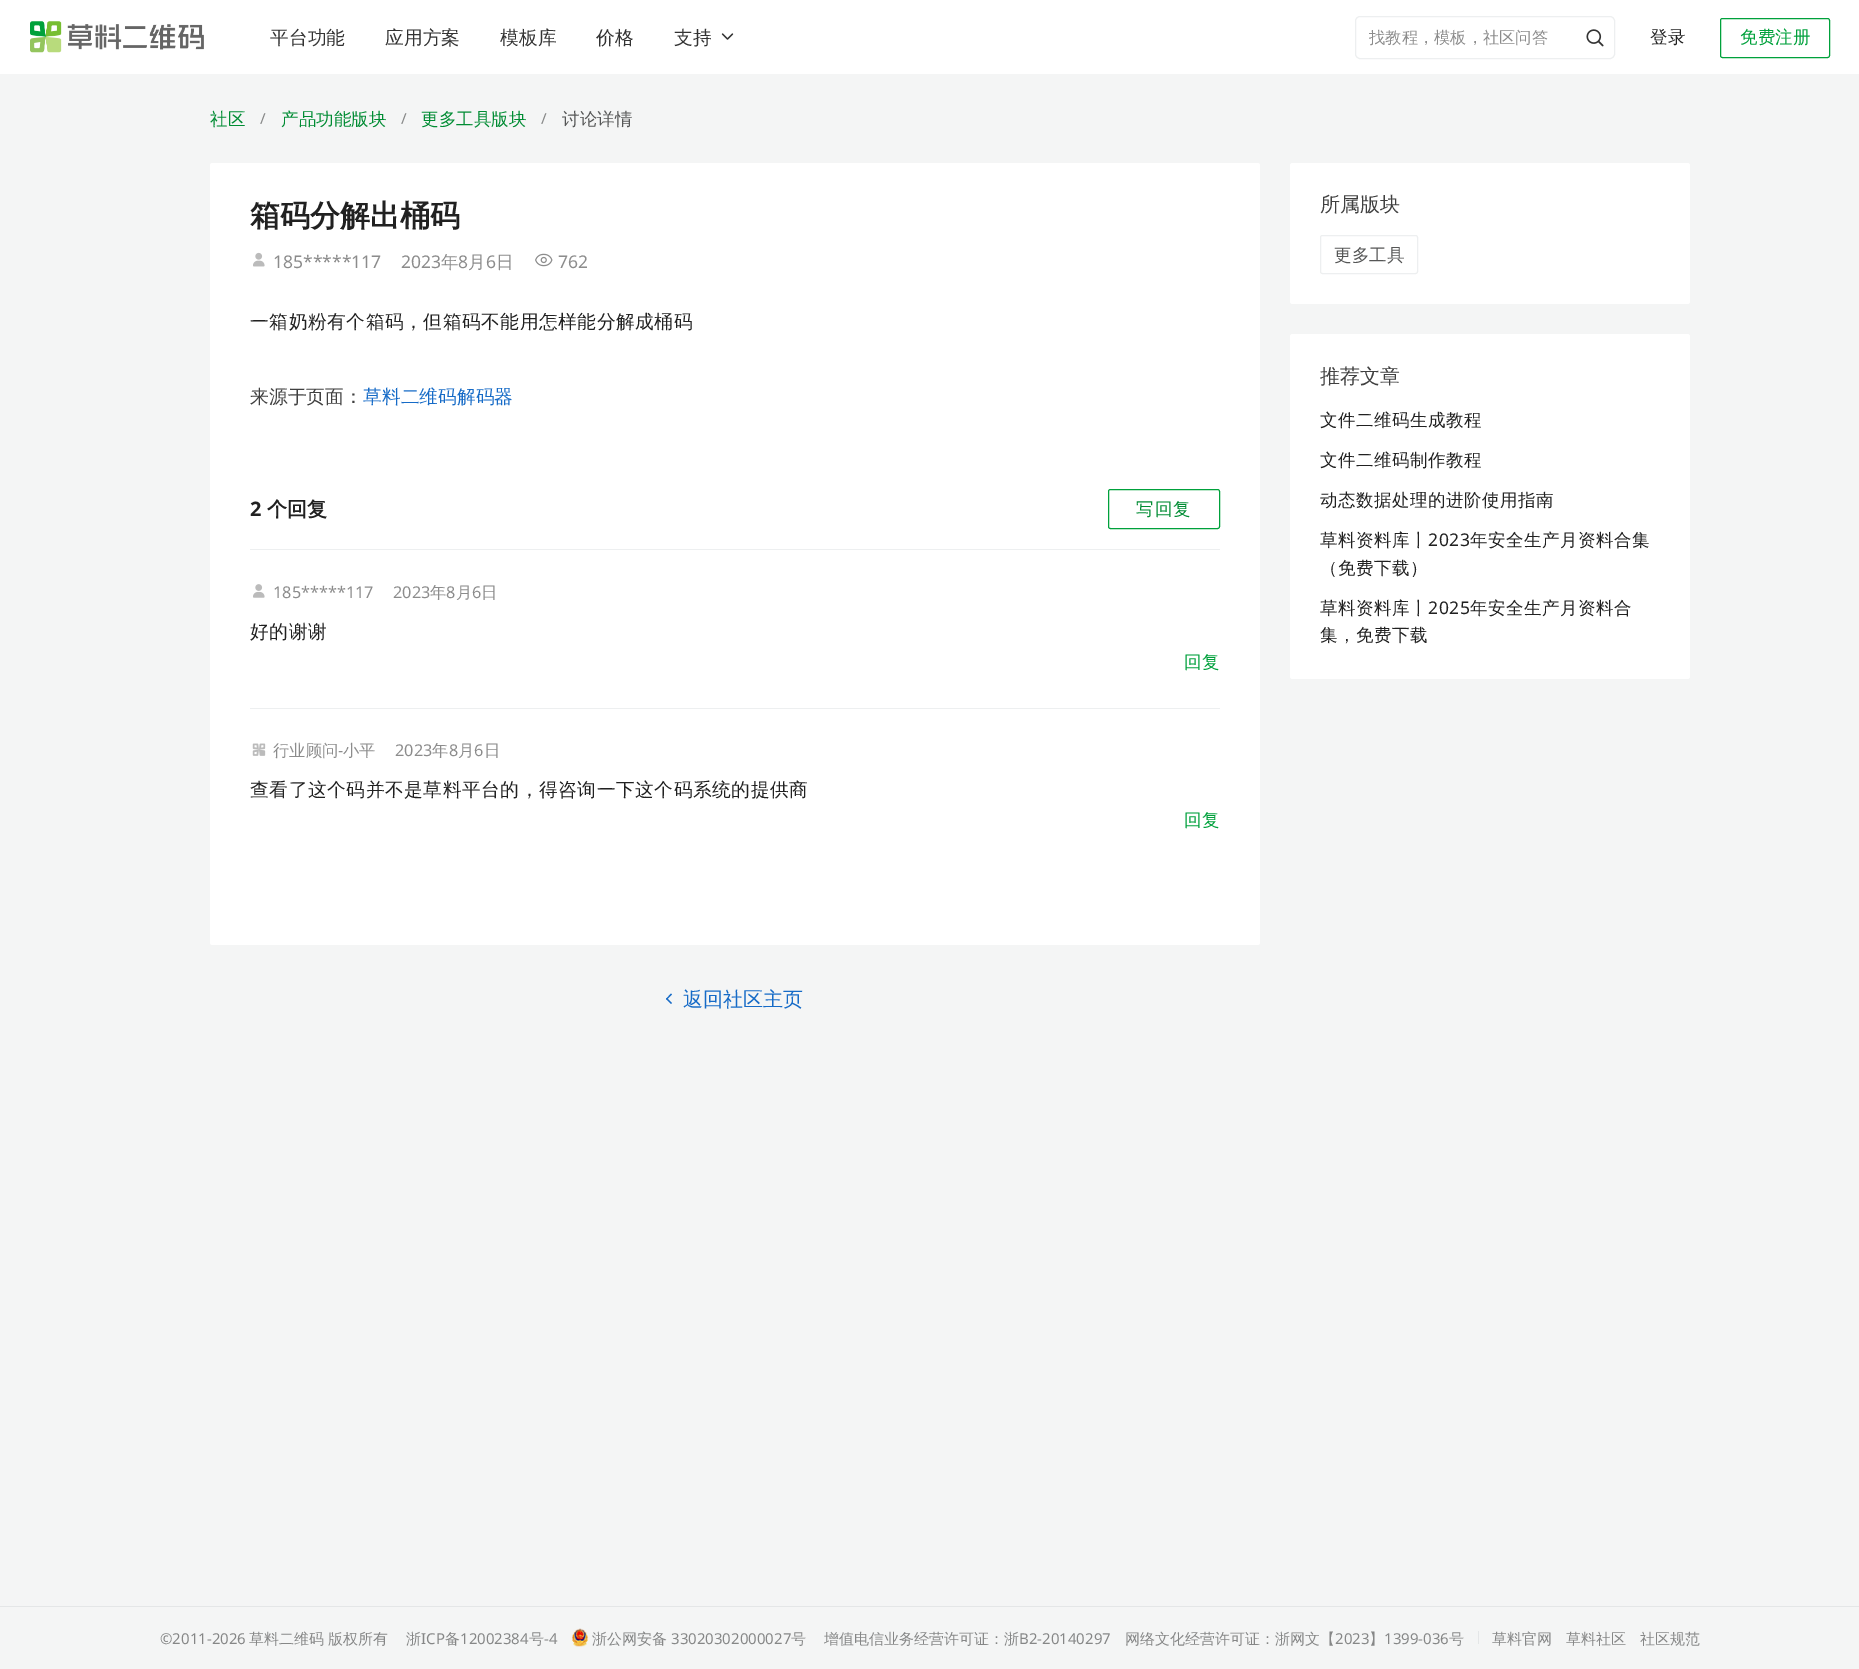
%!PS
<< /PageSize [1859 1669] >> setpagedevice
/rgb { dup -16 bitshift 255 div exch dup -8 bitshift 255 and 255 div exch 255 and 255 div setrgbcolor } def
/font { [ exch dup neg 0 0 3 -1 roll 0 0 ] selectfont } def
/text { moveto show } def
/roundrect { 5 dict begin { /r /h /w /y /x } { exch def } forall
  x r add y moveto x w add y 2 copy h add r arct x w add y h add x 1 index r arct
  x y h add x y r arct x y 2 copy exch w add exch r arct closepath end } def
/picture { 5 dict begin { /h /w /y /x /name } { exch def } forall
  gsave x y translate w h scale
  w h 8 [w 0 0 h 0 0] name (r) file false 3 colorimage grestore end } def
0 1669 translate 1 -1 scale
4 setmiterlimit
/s1 { /WenQuanYiZenHei-Medium 18.75 font 16#333333 rgb } def
/s2 { /WenQuanYiZenHei-Medium 16.25 font 16#8C8C8C rgb } def
/s3 { /WenQuanYiZenHei-Medium 17.5 font 16#212121 rgb } def
/s4 { /WenQuanYiZenHei-Medium 17.5 font 16#00A13B rgb } def
/s5 { /WenQuanYiZenHei-Medium 17.5 font 16#008C33 rgb } def
/s6 { /NotoSans-Regular 15 font 16#868787 rgb } def
/s7 { /WenQuanYiZenHei-Medium 17.5 font 16#555656 rgb } def
/s8 { /WenQuanYiZenHei-Bold 30 font 16#212121 rgb } def
/s9 { /NotoSans-Regular 17.5 font 16#8C8C8C rgb } def
/s10 { /WenQuanYiZenHei-Medium 17.5 font 16#8C8C8C rgb } def
/s11 { /WenQuanYiZenHei-Medium 18.75 font 16#404040 rgb } def
/s12 { /WenQuanYiZenHei-Medium 18.75 font 16#166BC7 rgb } def
/s13 { /NotoSans-Bold 20 font 16#212121 rgb } def
/s14 { /WenQuanYiZenHei-Bold 20 font 16#212121 rgb } def
/s15 { /NotoSans-Regular 16.25 font 16#8C8C8C rgb } def
/s16 { /WenQuanYiZenHei-Medium 20 font 16#166BC7 rgb } def
/s17 { /WenQuanYiZenHei-Medium 20 font 16#404040 rgb } def
/s18 { /WenQuanYiZenHei-Medium 15 font 16#868787 rgb } def
16#F4F5F5 rgb
0 0 1859 1669 rectfill
16#FFFFFF rgb
0 0 1859 74 rectfill
(pic1.raw) 30 21 174 32 picture
s1
(平台功能) 270 44 text
(应用方案) 385 44 text
(模板库) 500 44 text
(价格) 596 44 text
(支持) 674 44 text
(pic2.raw) 721 33 13 7 picture
16#EDEFF0 rgb
1355.5 16.5 259 42 4.5 roundrect stroke
s2
(找教程，模板，社区问答) 1369 43 text
(pic3.raw) 1586 29 18 18 picture
s3
(登录) 1650 43 text
16#00A13B rgb
1720.5 18.5 109 39 2 roundrect stroke
(免费注册) 1740 43 text
s5
(社区) 210 125 text
s6
(/) 260 124 text
s5
(产品功能版块) 281 125 text
s6
(/) 401 124 text
s5
(更多工具版块) 421 125 text
s6
(/) 541 124 text
s7
(讨论详情) 562 125 text
16#FFFFFF rgb
212.5 163 moveto 1257.5 163 lineto 1259 163 1260 164 1260 165.5 curveto 1260 449 lineto 210 449 lineto 210 165.5 lineto 210 164 211 163 212.5 163 curveto closepath fill
s8
(箱码分解出桶码) 250 226 text
(pic4.raw) 253 252 12 15 picture
s9
(185*****117) 273 268 text
(2023) 401 268 text
s10
(年) 441 268 text
s9
(8) 458 268 text
s10
(月) 468 268 text
s9
(6) 486 268 text
s10
(日) 496 268 text
(pic5.raw) 535 253 18 14 picture
s9
(762) 558 268 text
/WenQuanYiZenHei-Medium 18.75 font
16#212121 rgb
250 328 moveto 0.5 0 (一箱奶粉有个箱码，但箱码不能用怎样能分解成桶码) ashow
s11
(来源于页面：) 250 403 text
s12
(草料二维码解码器) 363 403 text
16#FFFFFF rgb
210 449 moveto 1260 449 lineto 1260 942.5 lineto 1260 944 1259 945 1257.5 945 curveto 212.5 945 lineto 211 945 210 944 210 942.5 curveto closepath fill
s13
(2) 250 516 text
s14
(个回复) 267 516 text
16#00A13B rgb
1108.5 489.5 111 39 2 roundrect stroke
/WenQuanYiZenHei-Medium 17.5 font
16#008C33 rgb
1136 515 moveto 1 0 (写回复) ashow
16#EDEFF0 rgb
250 549 970 1 rectfill
250 708 970 1 rectfill
(pic6.raw) 253 584 12 14 picture
s15
(185*****117) 273 598 text
(2023) 393 598 text
s2
(年) 430 598 text
s15
(8) 446 598 text
s2
(月) 456 598 text
s15
(6) 472 598 text
s2
(日) 481 598 text
/WenQuanYiZenHei-Medium 18.75 font
16#212121 rgb
250 638 moveto 0.5 0 (好的谢谢) ashow
/WenQuanYiZenHei-Medium 17.5 font
16#00A13B rgb
1184 668 moveto 0.5 0 (回复) ashow
(pic7.raw) 252 743 14 13 picture
s2
(行业顾问) 273 756 text
s15
(-) 338 756 text
s2
(小平) 343 756 text
s15
(2023) 395 756 text
s2
(年) 432 756 text
s15
(8) 449 756 text
s2
(月) 458 756 text
s15
(6) 474 756 text
s2
(日) 484 756 text
/WenQuanYiZenHei-Medium 18.75 font
16#212121 rgb
250 796 moveto 0.5 0 (查看了这个码并不是草料平台的，得咨询一下这个码系统的提供商) ashow
/WenQuanYiZenHei-Medium 17.5 font
16#00A13B rgb
1184 826 moveto 0.5 0 (回复) ashow
16#166BC7 rgb
667 998 moveto 672 1003 lineto 671 1004 lineto 666 999 lineto closepath fill
671 993.5 moveto 672 994.5 lineto 667 999.5 lineto 666 999 lineto closepath fill
s16
(返回社区主页) 683 1006 text
16#FFFFFF rgb
1290 163 400 141 2.5 roundrect fill
s17
(所属版块) 1320 211 text
16#EDEFF0 rgb
1320.5 235.5 97 38 2 roundrect stroke
s7
(更多工具) 1334 261 text
16#FFFFFF rgb
1290 334 400 345 2.5 roundrect fill
s17
(推荐文章) 1320 383 text
/WenQuanYiZenHei-Medium 17.5 font
16#212121 rgb
1320 426 moveto 0.5 0 (文件二维码生成教程) ashow
1320 466 moveto 0.5 0 (文件二维码制作教程) ashow
1320 506 moveto 0.5 0 (动态数据处理的进阶使用指南) ashow
1320 546 moveto 0.5 0 (草料资料库丨) ashow
/NotoSans-Regular 17.5 font
1428 546 moveto 0.5 0 (2023) ashow
/WenQuanYiZenHei-Medium 17.5 font
1470 546 moveto 0.5 0 (年安全生产月资料合集) ashow
1320 574 moveto 0.5 0 (（免费下载）) ashow
1320 614 moveto 0.5 0 (草料资料库丨) ashow
/NotoSans-Regular 17.5 font
1428 614 moveto 0.5 0 (2025) ashow
/WenQuanYiZenHei-Medium 17.5 font
1470 614 moveto 0.5 0 (年安全生产月资料合) ashow
1320 641 moveto 0.5 0 (集，免费下载) ashow
16#E4E6E7 rgb
0 1606 1859 1 rectfill
s6
(©2011-2026) 160 1644 text
s18
(草料二维码 版权所有) 249 1644 text
(浙) 406 1644 text
s6
(ICP) 421 1644 text
s18
(备) 445 1644 text
s6
(12002384) 460 1644 text
s18
(号) 529 1644 text
s6
(-4) 544 1644 text
(pic8.raw) 572 1628 16 19 picture
s18
(浙公网安备) 592 1644 text
s6
(33020302000027) 671 1644 text
s18
(号) 791 1644 text
(增值电信业务经营许可证：浙) 824 1644 text
s6
(B2-20140297) 1019 1644 text
s18
(网络文化经营许可证：浙网文【) 1125 1644 text
s6
(2023) 1335 1644 text
s18
(】) 1369 1644 text
s6
(1399-036) 1384 1644 text
s18
(号) 1449 1644 text
16#E4E6E7 rgb
1478 1631 1 13 rectfill
s18
(草料官网) 1492 1644 text
(草料社区) 1566 1644 text
(社区规范) 1640 1644 text
showpage
